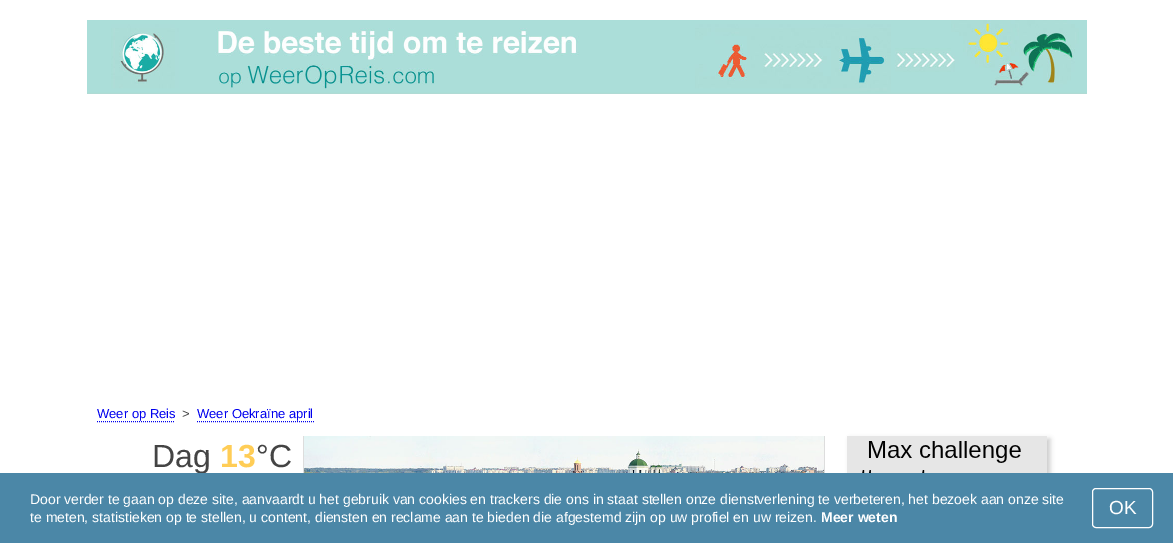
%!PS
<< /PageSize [1173 543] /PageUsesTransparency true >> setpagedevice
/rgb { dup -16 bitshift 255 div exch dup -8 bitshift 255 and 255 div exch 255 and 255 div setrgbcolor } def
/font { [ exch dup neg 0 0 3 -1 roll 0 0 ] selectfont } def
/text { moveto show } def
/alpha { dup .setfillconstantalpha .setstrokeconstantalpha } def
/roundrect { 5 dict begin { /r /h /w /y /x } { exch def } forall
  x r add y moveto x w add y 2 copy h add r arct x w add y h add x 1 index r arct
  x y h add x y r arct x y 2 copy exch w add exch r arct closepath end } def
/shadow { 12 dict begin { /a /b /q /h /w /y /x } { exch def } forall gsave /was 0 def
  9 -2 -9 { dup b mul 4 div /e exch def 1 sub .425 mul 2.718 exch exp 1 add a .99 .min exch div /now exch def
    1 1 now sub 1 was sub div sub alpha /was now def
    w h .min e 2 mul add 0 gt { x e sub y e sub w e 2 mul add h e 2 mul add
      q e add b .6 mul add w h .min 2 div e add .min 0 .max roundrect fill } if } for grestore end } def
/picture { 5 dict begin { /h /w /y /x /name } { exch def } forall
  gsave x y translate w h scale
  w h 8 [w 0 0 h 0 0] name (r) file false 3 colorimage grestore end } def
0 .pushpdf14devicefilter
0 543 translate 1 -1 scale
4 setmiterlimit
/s1 { /LiberationSans-Regular 13 font 16#0000EE rgb } def
/s2 { /LiberationSans-Regular 13 font 16#444444 rgb } def
/s3 { /LiberationSans-Regular 32 font 16#444444 rgb } def
/s4 { /LiberationSans-Bold 32 font 16#FFCD56 rgb } def
/s5 { /LiberationSans-Regular 14 font 16#FFFFFF rgb } def
/s6 { /LiberationSans-Bold 14 font 16#FFFFFF rgb } def
/s7 { /LiberationSans-Regular 19 font 16#FFFFFF rgb } def
16#FFFFFF rgb
0 0 1173 543 rectfill
(pic1.raw) 87 20 1000 74 picture
s1
(Weer op Reis) 97 418 text
[1 1] 0 setdash
97 421.5 moveto 175 421.5 lineto stroke
s2
(>) 182 418 text
s1
(Weer Oekraïne april) 197 418 text
197 421.5 moveto 314 421.5 lineto stroke
s3
(Dag) 152 467 text
s4
(13) 220 467 text
s3
(°C) 256 467 text
16#DDDDDD rgb
824 436 1 37 rectfill
303 436 1 37 rectfill
(pic2.raw) 304 436 520 37 picture
16#000000 rgb
850 439 200 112 0 2.5 0.2 shadow
16#E6E6E6 rgb
847 436 200 37 rectfill
(pic3.raw) 862 441 159 32 picture
16#4B87A7 rgb
0 473 1173 70 rectfill
s5
(Door verder te gaan op deze site, aanvaardt u het gebruik van cookies en trackers die ons in staat stellen onze dienstverlening te verbeteren, het bezoek aan onze site) 30 504 text
(te meten, statistieken op te stellen, u content, diensten en reclame aan te bieden die afgestemd zijn op uw profiel en uw reizen.) 30 522 text
s6
(Meer weten) 821 522 text
[] 0 setdash
1092.5 488.5 60 39 3.5 roundrect stroke
s7
(OK) 1109 514 text
.poppdf14devicefilter showpage
